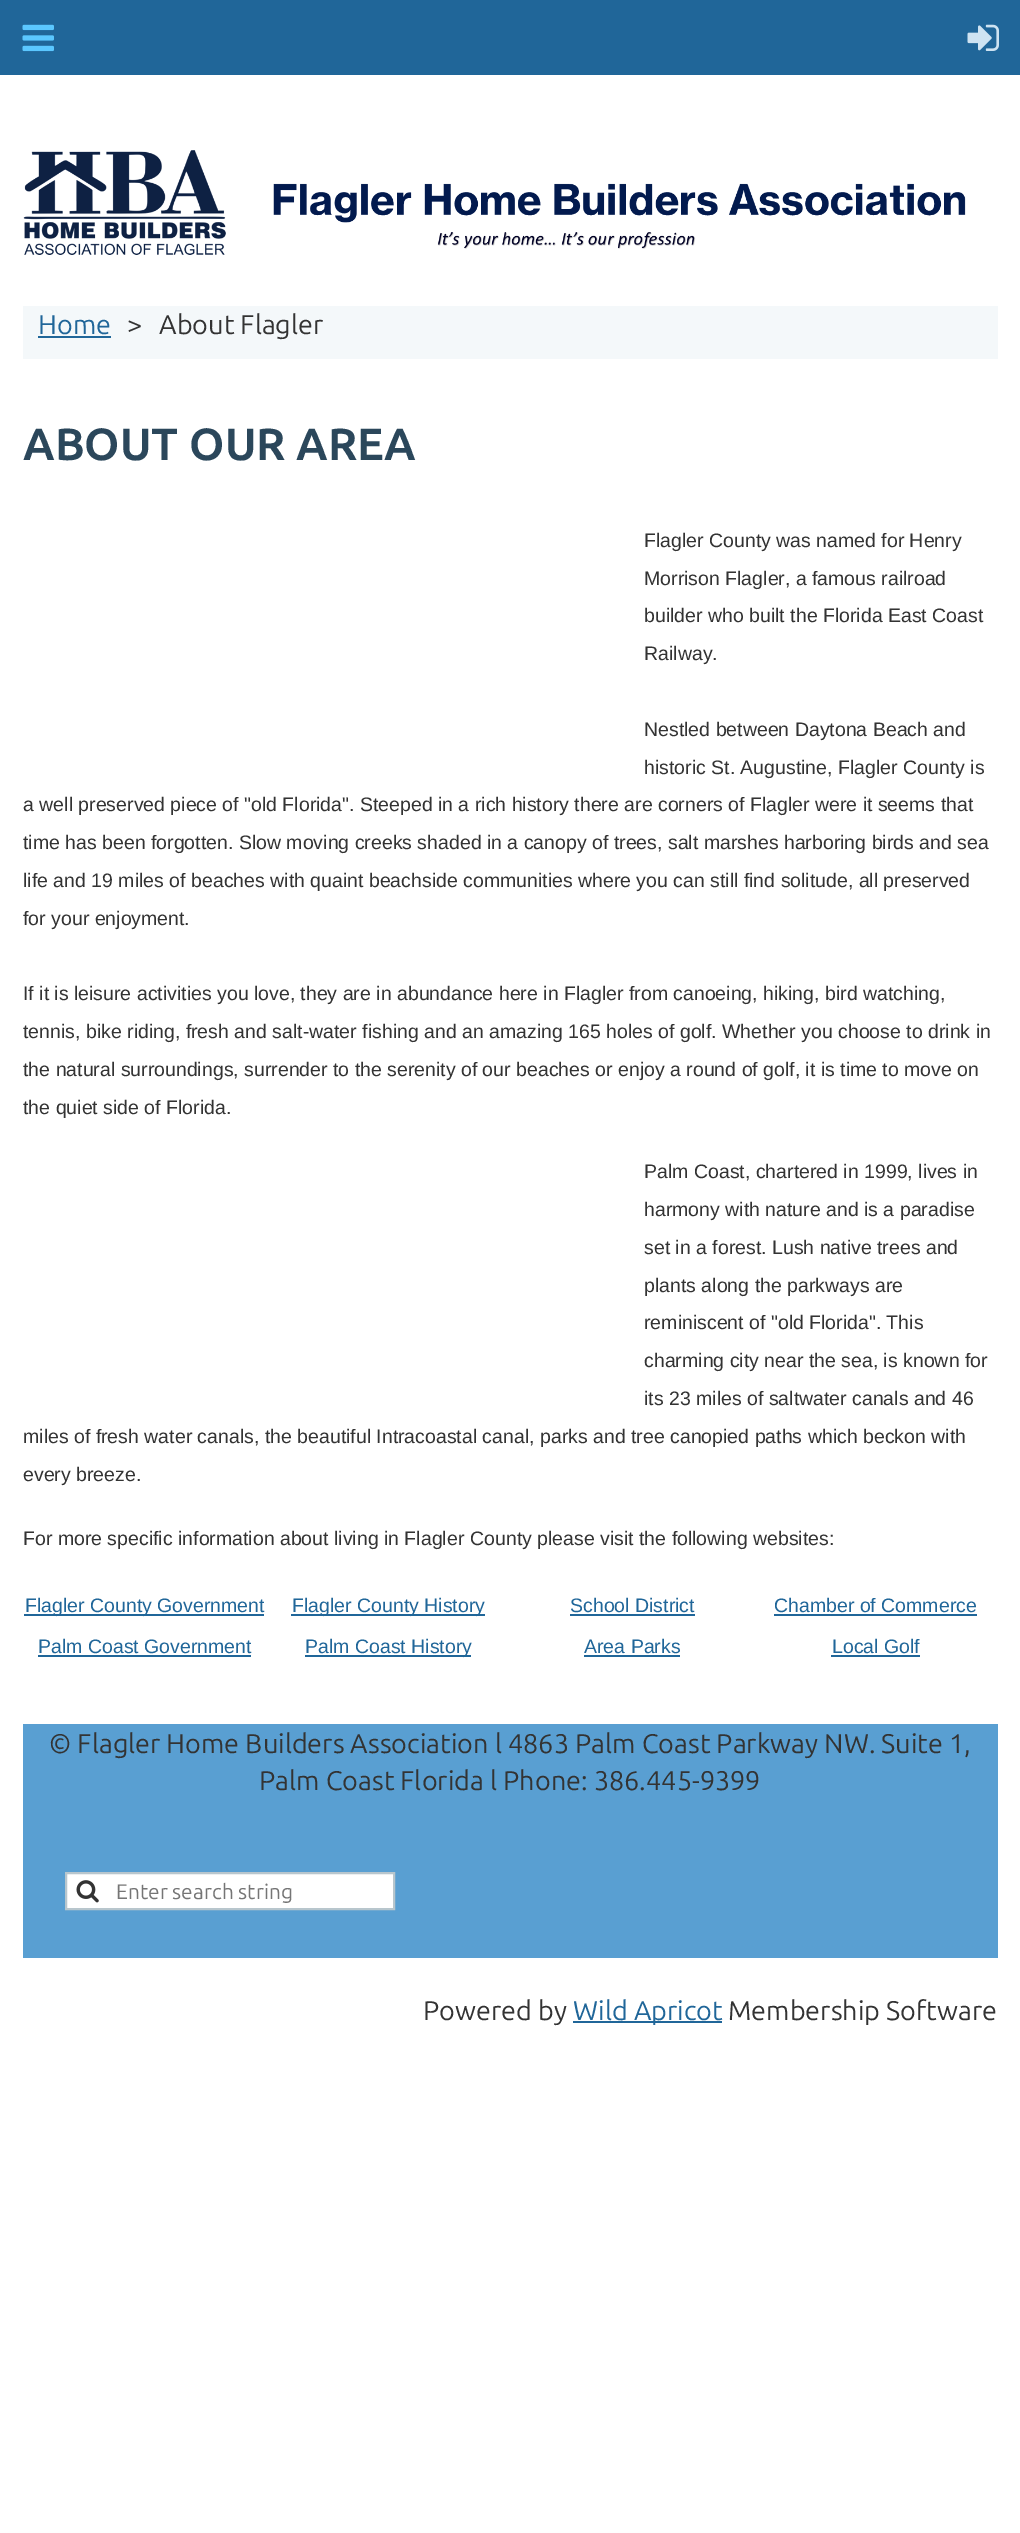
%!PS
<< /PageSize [1020 2533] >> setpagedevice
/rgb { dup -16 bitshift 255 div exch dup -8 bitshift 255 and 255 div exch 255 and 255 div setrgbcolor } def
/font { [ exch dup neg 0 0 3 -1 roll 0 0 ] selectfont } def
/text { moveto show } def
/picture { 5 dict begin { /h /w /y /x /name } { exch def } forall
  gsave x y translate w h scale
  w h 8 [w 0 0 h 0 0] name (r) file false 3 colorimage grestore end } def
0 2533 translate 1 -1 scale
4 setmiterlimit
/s1 { /Ubuntu-Regular 27 font 16#206699 rgb } def
/s2 { /Ubuntu-Regular 27 font 16#333333 rgb } def
/s3 { /Ubuntu-Bold 45 font 16#2B475B rgb } def
/s4 { /LiberationSans-Regular 19.5 font 16#333333 rgb } def
/s5 { /LiberationSans-Regular 19.5 font 16#206699 rgb } def
/s6 { /Ubuntu-Regular 21 font 16#757575 rgb } def
16#FFFFFF rgb
0 0 1020 2533 rectfill
16#206699 rgb
0 0 1020 75 rectfill
(pic1.raw) 22 24 32 28 picture
(pic2.raw) 967 24 32 27 picture
(pic3.raw) 23 150 943 105 picture
16#F4F8FA rgb
23 306 975 53 rectfill
s1
(Home) 38 334 text
38 336 73 2 rectfill
s2
(>) 127 334 text
(About Flagler) 159 334 text
s3
(ABOUT OUR AREA) 23 460 text
s4
(Flagler County was named for Henry) 644 547 text
(Morrison Flagler, a famous railroad) 644 585 text
(builder who built the Florida East Coast) 644 622 text
(Railway.) 644 660 text
(Nestled between Daytona Beach and) 644 736 text
(historic St. Augustine, Flagler County is) 644 774 text
(a well preserved piece of "old Florida". Steeped in a rich history there are corners of Flagler were it seems that) 23 811 text
(time has been forgotten. Slow moving creeks shaded in a canopy of trees, salt marshes harboring birds and sea) 23 849 text
(life and 19 miles of beaches with quaint beachside communities where you can still find solitude, all preserved) 23 887 text
(for your enjoyment.) 23 925 text
(If it is leisure activities you love, they are in abundance here in Flagler from canoeing, hiking, bird watching,) 23 1000 text
(tennis, bike riding, fresh and salt-water fishing and an amazing 165 holes of golf. Whether you choose to drink in) 23 1038 text
(the natural surroundings, surrender to the serenity of our beaches or enjoy a round of golf, it is time to move on) 23 1076 text
(the quiet side of Florida.) 23 1114 text
(Palm Coast, chartered in 1999, lives in) 644 1178 text
(harmony with nature and is a paradise) 644 1216 text
(set in a forest. Lush native trees and) 644 1254 text
(plants along the parkways are) 644 1292 text
(reminiscent of "old Florida". This) 644 1329 text
(charming city near the sea, is known for) 644 1367 text
(its 23 miles of saltwater canals and 46) 644 1405 text
(miles of fresh water canals, the beautiful Intracoastal canal, parks and tree canopied paths which beckon with) 23 1443 text
(every breeze.) 23 1481 text
(For more specific information about living in Flagler) 23 1545 text
(County please visit the following websites:) 470 1545 text
16#206699 rgb
24 1614 240 2 rectfill
(Flagler County Government) 25 1612 text
291 1614 194 2 rectfill
(Flagler County History) 292 1612 text
(School District) 570 1612 text
570 1614 125 2 rectfill
(Chamber of Commerce) 774 1612 text
774 1614 203 2 rectfill
(Palm Coast Government) 38 1653 text
38 1655 213 2 rectfill
305 1655 166 2 rectfill
(Palm Coast History) 305 1653 text
(Area Parks) 584 1653 text
584 1655 96 2 rectfill
(Local Golf) 832 1653 text
831 1655 89 2 rectfill
16#599FD2 rgb
23 1724 975 234 rectfill
s2
(© Flagler Home Builders Association l 4863 Palm Coast Parkway NW. Suite 1,) 49 1753 text
(Palm Coast Florida l Phone: 386.445-9399) 259 1790 text
16#FFFFFF rgb
66 1873 moveto 394 1873 lineto 394 1909 lineto 66 1909 lineto closepath gsave fill grestore
16#B8C6CD rgb
2 setlinewidth
stroke
(pic4.raw) 76 1880 23 23 picture
s6
(Enter search string) 116 1899 text
s2
(Powered by) 423 2020 text
16#206699 rgb
573 2021 149 2 rectfill
(Wild Apricot) 573 2020 text
s2
(Membership Software) 728 2020 text
showpage
